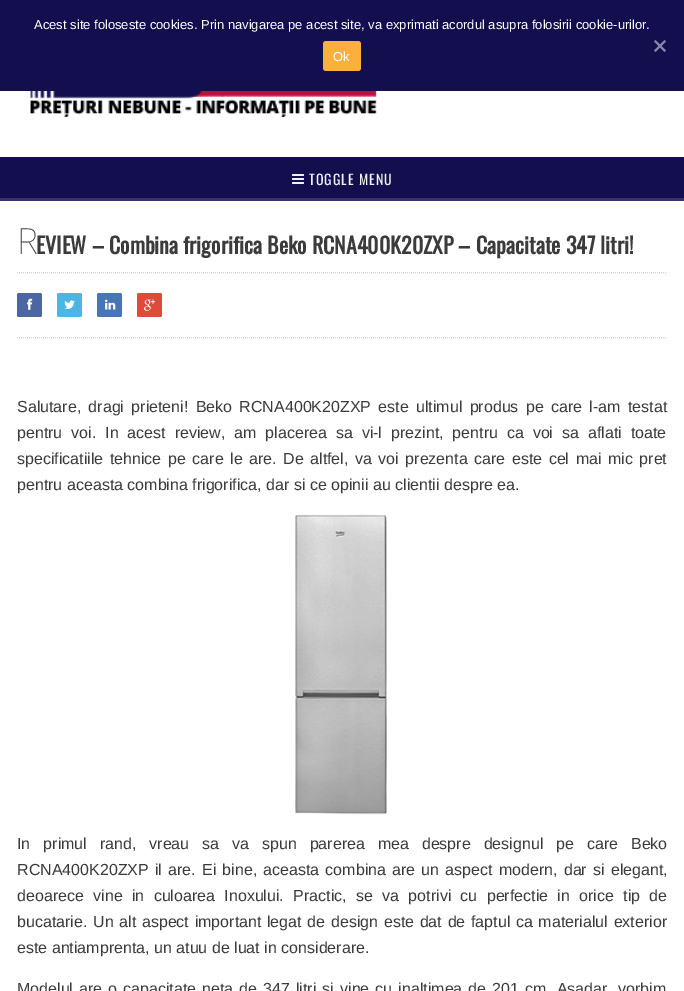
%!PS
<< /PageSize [684 991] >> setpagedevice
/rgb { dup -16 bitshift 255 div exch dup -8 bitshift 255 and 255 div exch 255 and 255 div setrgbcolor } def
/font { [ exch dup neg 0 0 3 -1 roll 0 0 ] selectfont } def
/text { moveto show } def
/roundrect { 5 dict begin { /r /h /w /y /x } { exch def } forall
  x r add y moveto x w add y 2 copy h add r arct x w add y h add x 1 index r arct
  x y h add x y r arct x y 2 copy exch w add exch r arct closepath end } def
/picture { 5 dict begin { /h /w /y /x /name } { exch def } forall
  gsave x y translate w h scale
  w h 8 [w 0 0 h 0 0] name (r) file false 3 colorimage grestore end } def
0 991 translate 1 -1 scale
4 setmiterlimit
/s1 { /LiberationSans-Regular 13 font 16#FFFFFF rgb } def
/s2 { /NotoSans-Thin 36 font 16#3B3B3B rgb } def
/s3 { /Oswald-Bold 22 font 16#3B3B3B rgb } def
/s4 { /LiberationSans-Regular 16 font 16#3B3B3B rgb } def
16#FFFFFF rgb
0 0 684 991 rectfill
16#130F4F rgb
0 0 684 91 rectfill
s1
(Acest site foloseste cookies. Prin navigarea pe acest site, va exprimati acordul asupra folosirii cookie-urilor.) 34 29 text
16#8987A7 rgb
664.5 40 moveto 666 41.5 lineto 655.5 52 lineto 654 50.5 lineto closepath fill
654 41.5 moveto 655.5 40 lineto 666 50.5 lineto 664.5 52 lineto closepath fill
16#FBB03B rgb
323 41 38 30 3 roundrect fill
s1
(Ok) 333 61 text
(pic1.raw) 30 91 347 26 picture
16#130F4F rgb
0 157 684 41 rectfill
16#363369 rgb
0 198 684 3 rectfill
(pic2.raw) 292 174 12 10 picture
/Oswald-Regular 14 font
16#F1F1F1 rgb
309 185 moveto 1 0 (TOGGLE MENU) ashow
s2
(R) 17 254 text
s3
(EVIEW – Combina frigorifica Beko RCNA400K20ZXP – Capacitate 347 litri!) 36 254 text
16#CCCCCC rgb
[1 1] 0 setdash
17 272.5 moveto 667 272.5 lineto stroke
17 337.5 moveto 667 337.5 lineto stroke
16#4C66A4 rgb
17 293 25 24 2 roundrect fill
(pic3.raw) 27 298 6 12 picture
16#4CB6E2 rgb
57 293 25 24 2 roundrect fill
(pic4.raw) 64 300 11 9 picture
16#4875B4 rgb
97 293 25 24 2 roundrect fill
(pic5.raw) 105 299 11 11 picture
16#DD4B39 rgb
137 293 25 24 2 roundrect fill
(pic6.raw) 144 299 12 12 picture
/LiberationSans-Regular 16 font
16#3B3B3B rgb
17 412 moveto 2.9 0 32 (Salutare, dragi prieteni! Beko RCNA400K20ZXP este ultimul produs pe care l-am testat) widthshow
17 438 moveto 4.5 0 32 (pentru voi. In acest review, am placerea sa vi-l prezint, pentru ca voi sa aflati toate) widthshow
17 464 moveto 2.1 0 32 (specificatiile tehnice pe care le are. De altfel, va voi prezenta care este cel mai mic pret) widthshow
(pentru aceasta combina frigorifica, dar si ce opinii au clientii despre ea.) 17 490 text
(pic7.raw) 295 514 92 301 picture
17 849 moveto 8.5 0 32 (In primul rand, vreau sa va spun parerea mea despre designul pe care Beko) widthshow
17 875 moveto 1.75 0 32 (RCNA400K20ZXP il are. Ei bine, aceasta combina are un aspect modern, dar si elegant,) widthshow
17 901 moveto 4.9 0 32 (deoarece vine in culoarea Inoxului. Practic, se va potrivi cu perfectie in orice tip de) widthshow
17 927 moveto 1.25 0 32 (bucatarie. Un alt aspect important legat de design este dat de faptul ca materialul exterior) widthshow
(este antiamprenta, un atuu de luat in considerare.) 17 953 text
17 994 moveto 1.6 0 32 (Modelul are o capacitate neta de 347 litri si vine cu inaltimea de 201 cm. Asadar, vorbim) widthshow
showpage
